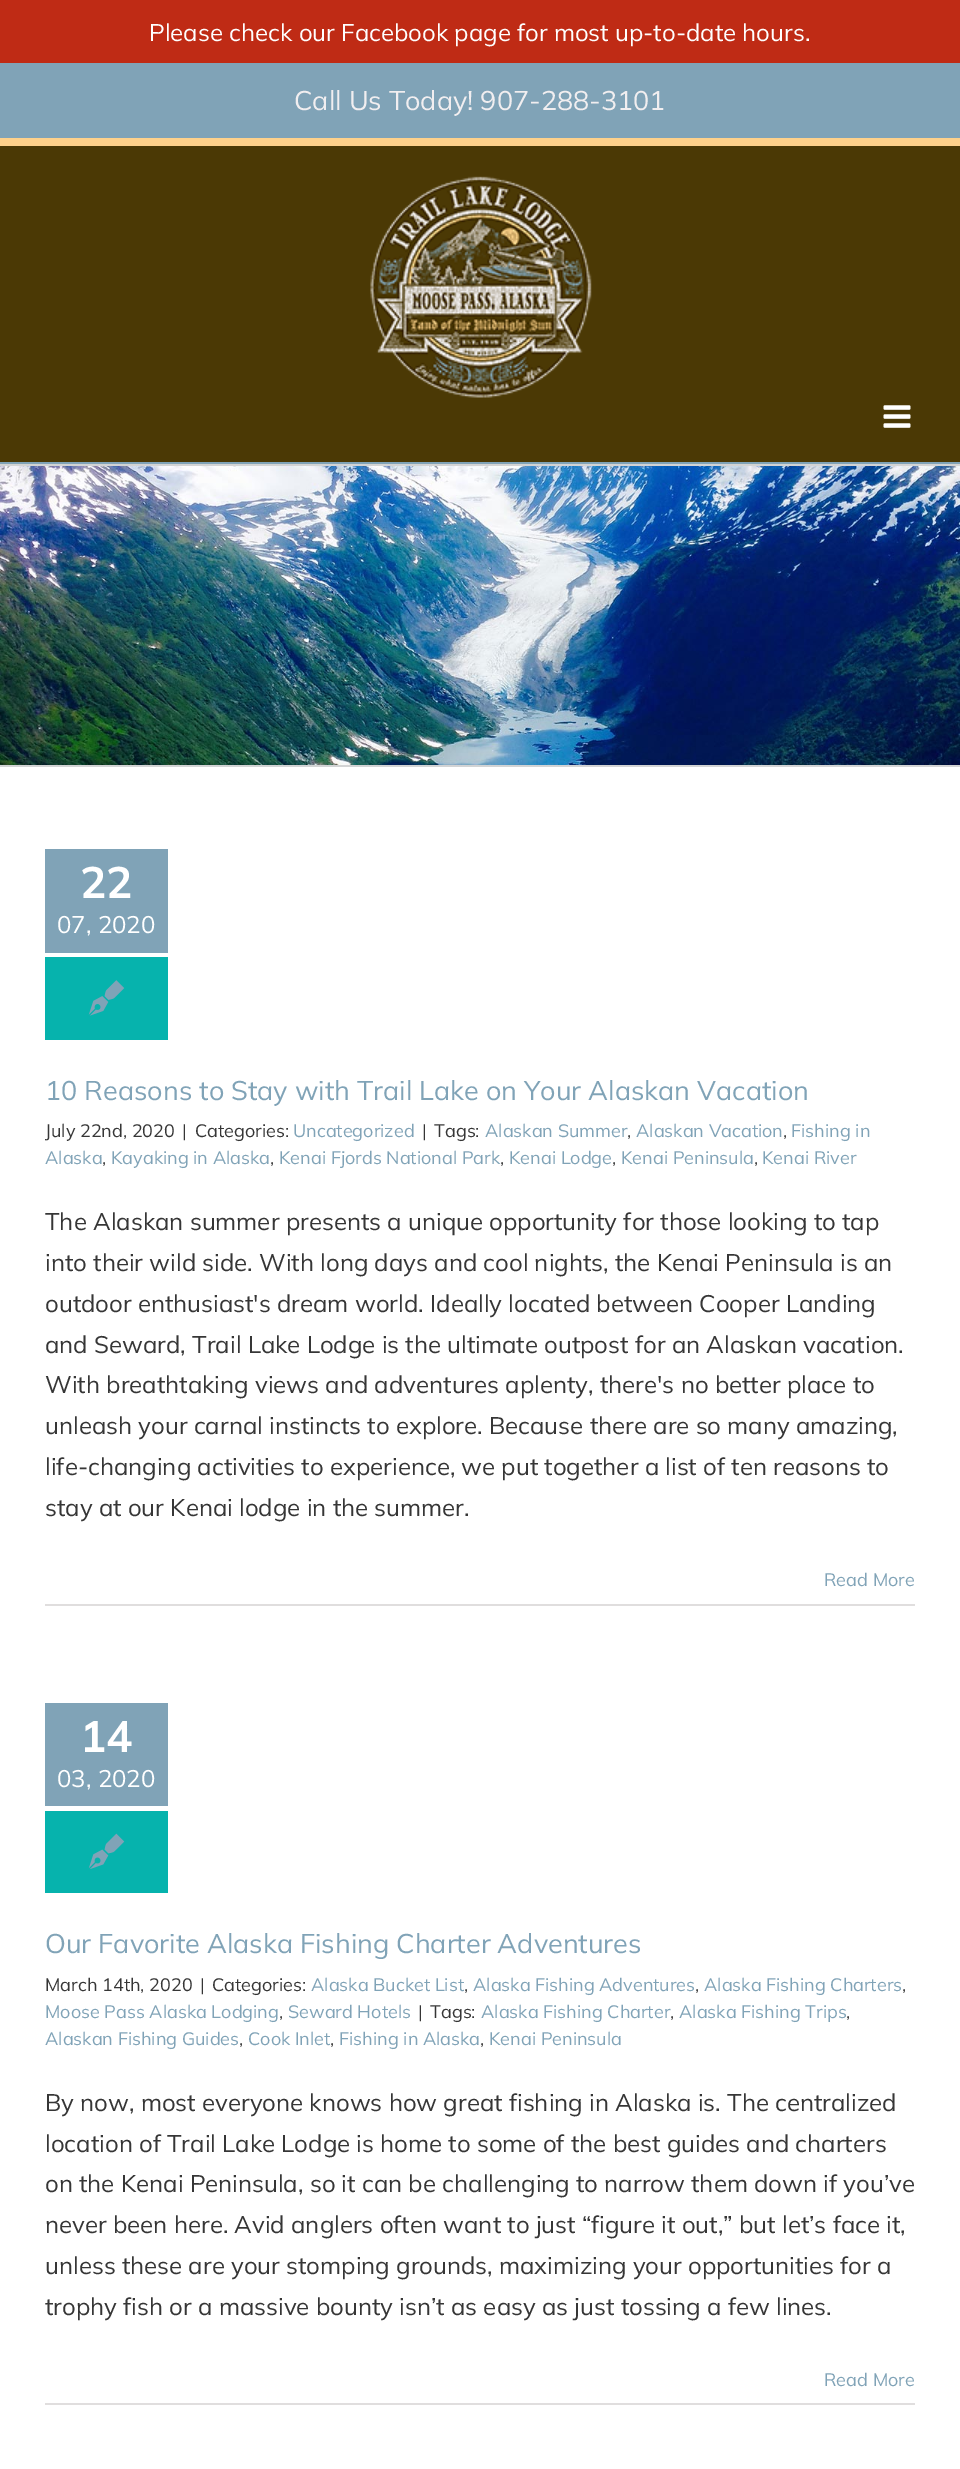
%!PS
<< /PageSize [960 2469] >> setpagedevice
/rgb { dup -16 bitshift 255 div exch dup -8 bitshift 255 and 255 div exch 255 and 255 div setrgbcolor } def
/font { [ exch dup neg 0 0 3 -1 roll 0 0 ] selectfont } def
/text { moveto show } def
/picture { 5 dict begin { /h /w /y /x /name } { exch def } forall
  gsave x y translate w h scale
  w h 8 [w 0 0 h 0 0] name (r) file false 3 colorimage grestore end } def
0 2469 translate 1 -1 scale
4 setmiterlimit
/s1 { /Mulish-Regular 24 font 16#FFFFFF rgb } def
/s2 { /Mulish-Regular 27 font 16#F1EEF0 rgb } def
/s3 { /Mulish-Bold 44 font 16#FFFFFF rgb } def
/s4 { /Mulish-Regular 27 font 16#80A3B7 rgb } def
/s5 { /Mulish-Regular 18 font 16#363636 rgb } def
/s6 { /Mulish-Regular 18 font 16#80A3B7 rgb } def
/s7 { /Mulish-Regular 24 font 16#363636 rgb } def
16#FFFFFF rgb
0 0 960 2469 rectfill
16#BF2B15 rgb
0 0 960 63 rectfill
s1
(Please check our Facebook page for most up-to-date hours.) 149 41 text
16#80A3B7 rgb
0 63 960 75 rectfill
s2
(Call Us Today! 907-288-3101) 294 110 text
16#4B3905 rgb
0 146 960 316 rectfill
16#FED18B rgb
0 138 960 8 rectfill
16#80A3B7 rgb
0 462 960 2 rectfill
(pic1.raw) 370 176 222 222 picture
(pic2.raw) 883 405 28 23 picture
(pic3.raw) 0 466 960 299 picture
16#D2D3D4 rgb
0 464 960 2 rectfill
0 765 960 2 rectfill
16#80A3B7 rgb
45 849 123 104 rectfill
s3
(22) 80 898 text
s1
(07, 2020) 57 933 text
16#06B3AD rgb
45 957 123 83 rectfill
(pic4.raw) 88 980 37 36 picture
s4
(10 Reasons to Stay with Trail Lake on Your Alaskan Vacation) 45 1100 text
s5
(July 22nd, 2020) 45 1137 text
(|) 182 1137 text
(Categories:) 195 1137 text
s6
(Uncategorized) 293 1137 text
s5
(|) 422 1137 text
(Tags:) 434 1137 text
s6
(Alaskan Summer) 485 1137 text
s5
(,) 627 1137 text
s6
(Alaskan Vacation) 636 1137 text
s5
(,) 783 1137 text
s6
(Fishing in) 791 1137 text
(Alaska) 45 1164 text
s5
(,) 102 1164 text
s6
(Kayaking in Alaska) 111 1164 text
s5
(,) 270 1164 text
s6
(Kenai Fjords National Park) 279 1164 text
s5
(,) 500 1164 text
s6
(Kenai Lodge) 509 1164 text
s5
(,) 612 1164 text
s6
(Kenai Peninsula) 621 1164 text
s5
(,) 754 1164 text
s6
(Kenai River) 762 1164 text
s7
(The Alaskan summer presents a unique opportunity for those looking to tap) 45 1230 text
(into their wild side. With long days and cool nights, the Kenai Peninsula is an) 45 1271 text
(outdoor enthusiast's dream world. Ideally located between Cooper Landing) 45 1312 text
(and Seward, Trail Lake Lodge is the ultimate outpost for an Alaskan vacation.) 45 1353 text
(With breathtaking views and adventures aplenty, there's no better place to) 45 1393 text
(unleash your carnal instincts to explore. Because there are so many amazing,) 45 1434 text
(life-changing activities to experience, we put together a list of ten reasons to) 45 1475 text
(stay at our Kenai lodge in the summer.) 45 1516 text
16#E0DEDE rgb
45 1604 870 2 rectfill
s6
(Read More) 824 1586 text
45 1703 123 103 rectfill
s3
(14) 80 1752 text
s1
(03, 2020) 57 1787 text
16#06B3AD rgb
45 1811 123 82 rectfill
(pic5.raw) 88 1833 37 36 picture
s4
(Our Favorite Alaska Fishing Charter Adventures) 45 1953 text
s5
(March 14th, 2020) 45 1991 text
(|) 200 1991 text
(Categories:) 212 1991 text
s6
(Alaska Bucket List) 311 1991 text
s5
(,) 464 1991 text
s6
(Alaska Fishing Adventures) 473 1991 text
s5
(,) 695 1991 text
s6
(Alaska Fishing Charters) 704 1991 text
s5
(,) 902 1991 text
s6
(Moose Pass Alaska Lodging) 45 2018 text
s5
(,) 279 2018 text
s6
(Seward Hotels) 288 2018 text
s5
(|) 418 2018 text
(Tags:) 430 2018 text
s6
(Alaska Fishing Charter) 481 2018 text
s5
(,) 670 2018 text
s6
(Alaska Fishing Trips) 679 2018 text
s5
(,) 846 2018 text
s6
(Alaskan Fishing Guides) 45 2045 text
s5
(,) 239 2045 text
s6
(Cook Inlet) 248 2045 text
s5
(,) 330 2045 text
s6
(Fishing in Alaska) 339 2045 text
s5
(,) 480 2045 text
s6
(Kenai Peninsula) 489 2045 text
s7
(By now, most everyone knows how great fishing in Alaska is. The centralized) 45 2111 text
(location of Trail Lake Lodge is home to some of the best guides and charters) 45 2152 text
(on the Kenai Peninsula, so it can be challenging to narrow them down if you’ve) 45 2192 text
(never been here. Avid anglers often want to just “figure it out,” but let’s face it,) 45 2233 text
(unless these are your stomping grounds, maximizing your opportunities for a) 45 2274 text
(trophy fish or a massive bounty isn’t as easy as just tossing a few lines.) 45 2315 text
16#E0DEDE rgb
45 2403 870 2 rectfill
s6
(Read More) 824 2386 text
showpage
